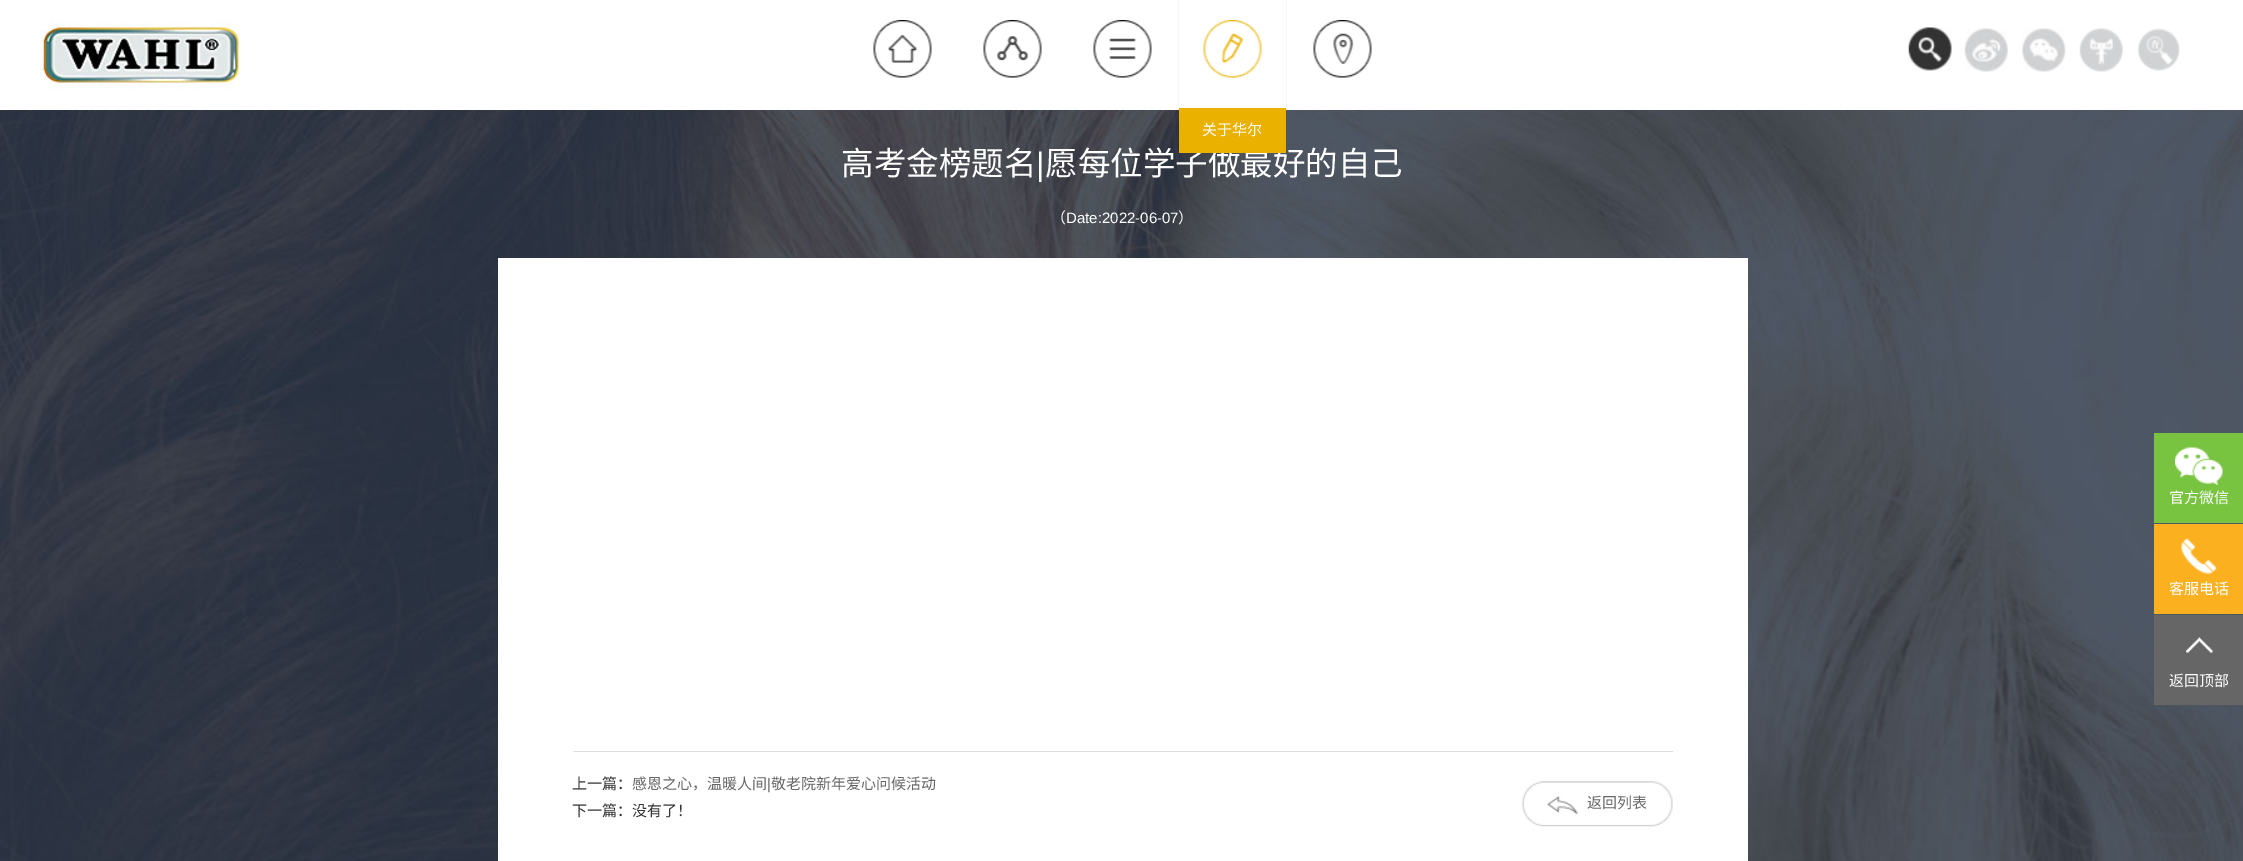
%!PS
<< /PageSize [2243 861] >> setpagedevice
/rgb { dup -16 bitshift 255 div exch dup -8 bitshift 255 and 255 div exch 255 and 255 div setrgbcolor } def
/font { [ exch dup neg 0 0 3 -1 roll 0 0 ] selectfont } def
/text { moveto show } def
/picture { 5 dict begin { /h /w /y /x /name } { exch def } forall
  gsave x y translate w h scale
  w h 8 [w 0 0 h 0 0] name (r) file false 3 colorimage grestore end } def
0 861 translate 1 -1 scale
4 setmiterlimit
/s1 { /NotoSansCJKSC-Regular 32.5 font 16#FFFFFF rgb } def
/s2 { /NotoSansCJKSC-Regular 15 font 16#FFFFFF rgb } def
/s3 { /LiberationSans-Regular 32.5 font 16#FFFFFF rgb } def
/s4 { /LiberationSans-Regular 15 font 16#FFFFFF rgb } def
/s5 { /NotoSansCJKSC-Regular 15 font 16#333333 rgb } def
/s6 { /NotoSansCJKSC-Regular 15 font 16#666666 rgb } def
/s7 { /LiberationSans-Regular 15 font 16#666666 rgb } def
16#FFFFFF rgb
0 0 2243 861 rectfill
(pic1.raw) 40 20 200 70 picture
(pic2.raw) 1908 27 44 44 picture
(pic3.raw) 1964 28 44 44 picture
(pic4.raw) 2022 28 44 44 picture
(pic5.raw) 2079 28 44 44 picture
(pic6.raw) 2137 28 43 43 picture
(pic8.raw) 888 34 29 29 picture
(pic7.raw) 873 20 59 58 picture
(pic10.raw) 996 36 33 25 picture
(pic9.raw) 983 20 59 58 picture
(pic12.raw) 1109 38 27 21 picture
(pic11.raw) 1093 20 59 58 picture
(pic14.raw) 1333 33 21 31 picture
(pic13.raw) 1313 20 59 58 picture
16#F6F6F6 rgb
1286 0 1 110 rectfill
1178 0 1 110 rectfill
(pic16.raw) 1221 33 23 30 picture
(pic15.raw) 1203 20 59 58 picture
(pic17.raw) 0 110 2243 751 picture
s1
(愿每位学子做最好的自己) 1045 175 text
16#EBB100 rgb
1179 108 107 45 rectfill
s2
(关于华尔) 1202 135 text
s1
(高考金榜题名) 841 175 text
s3
(|) 1036 175 text
s2
(（) 1051 223 text
s4
(Date:2022-06-07) 1066 223 text
s2
(）) 1178 223 text
498 258 1250 603 rectfill
16#DDDDDD rgb
573 751 1100 1 rectfill
s5
(上一篇：) 572 789 text
s6
(感恩之心，温暖人间) 632 789 text
s7
(|) 767 789 text
s6
(敬老院新年爱心问候活动) 771 789 text
s5
(下一篇：没有了！) 572 816 text
(pic18.raw) 1522 781 151 46 picture
s6
(返回列表) 1587 808 text
16#78C340 rgb
2154 433 89 90 rectfill
(pic19.raw) 2175 447 48 38 picture
s2
(官方微信) 2169 503 text
16#FBB01F rgb
2154 524 89 90 rectfill
(pic20.raw) 2181 538 36 36 picture
s2
(客服电话) 2169 594 text
16#666666 rgb
2154 615 89 90 rectfill
(pic21.raw) 2186 637 27 16 picture
s2
(返回顶部) 2169 686 text
showpage
